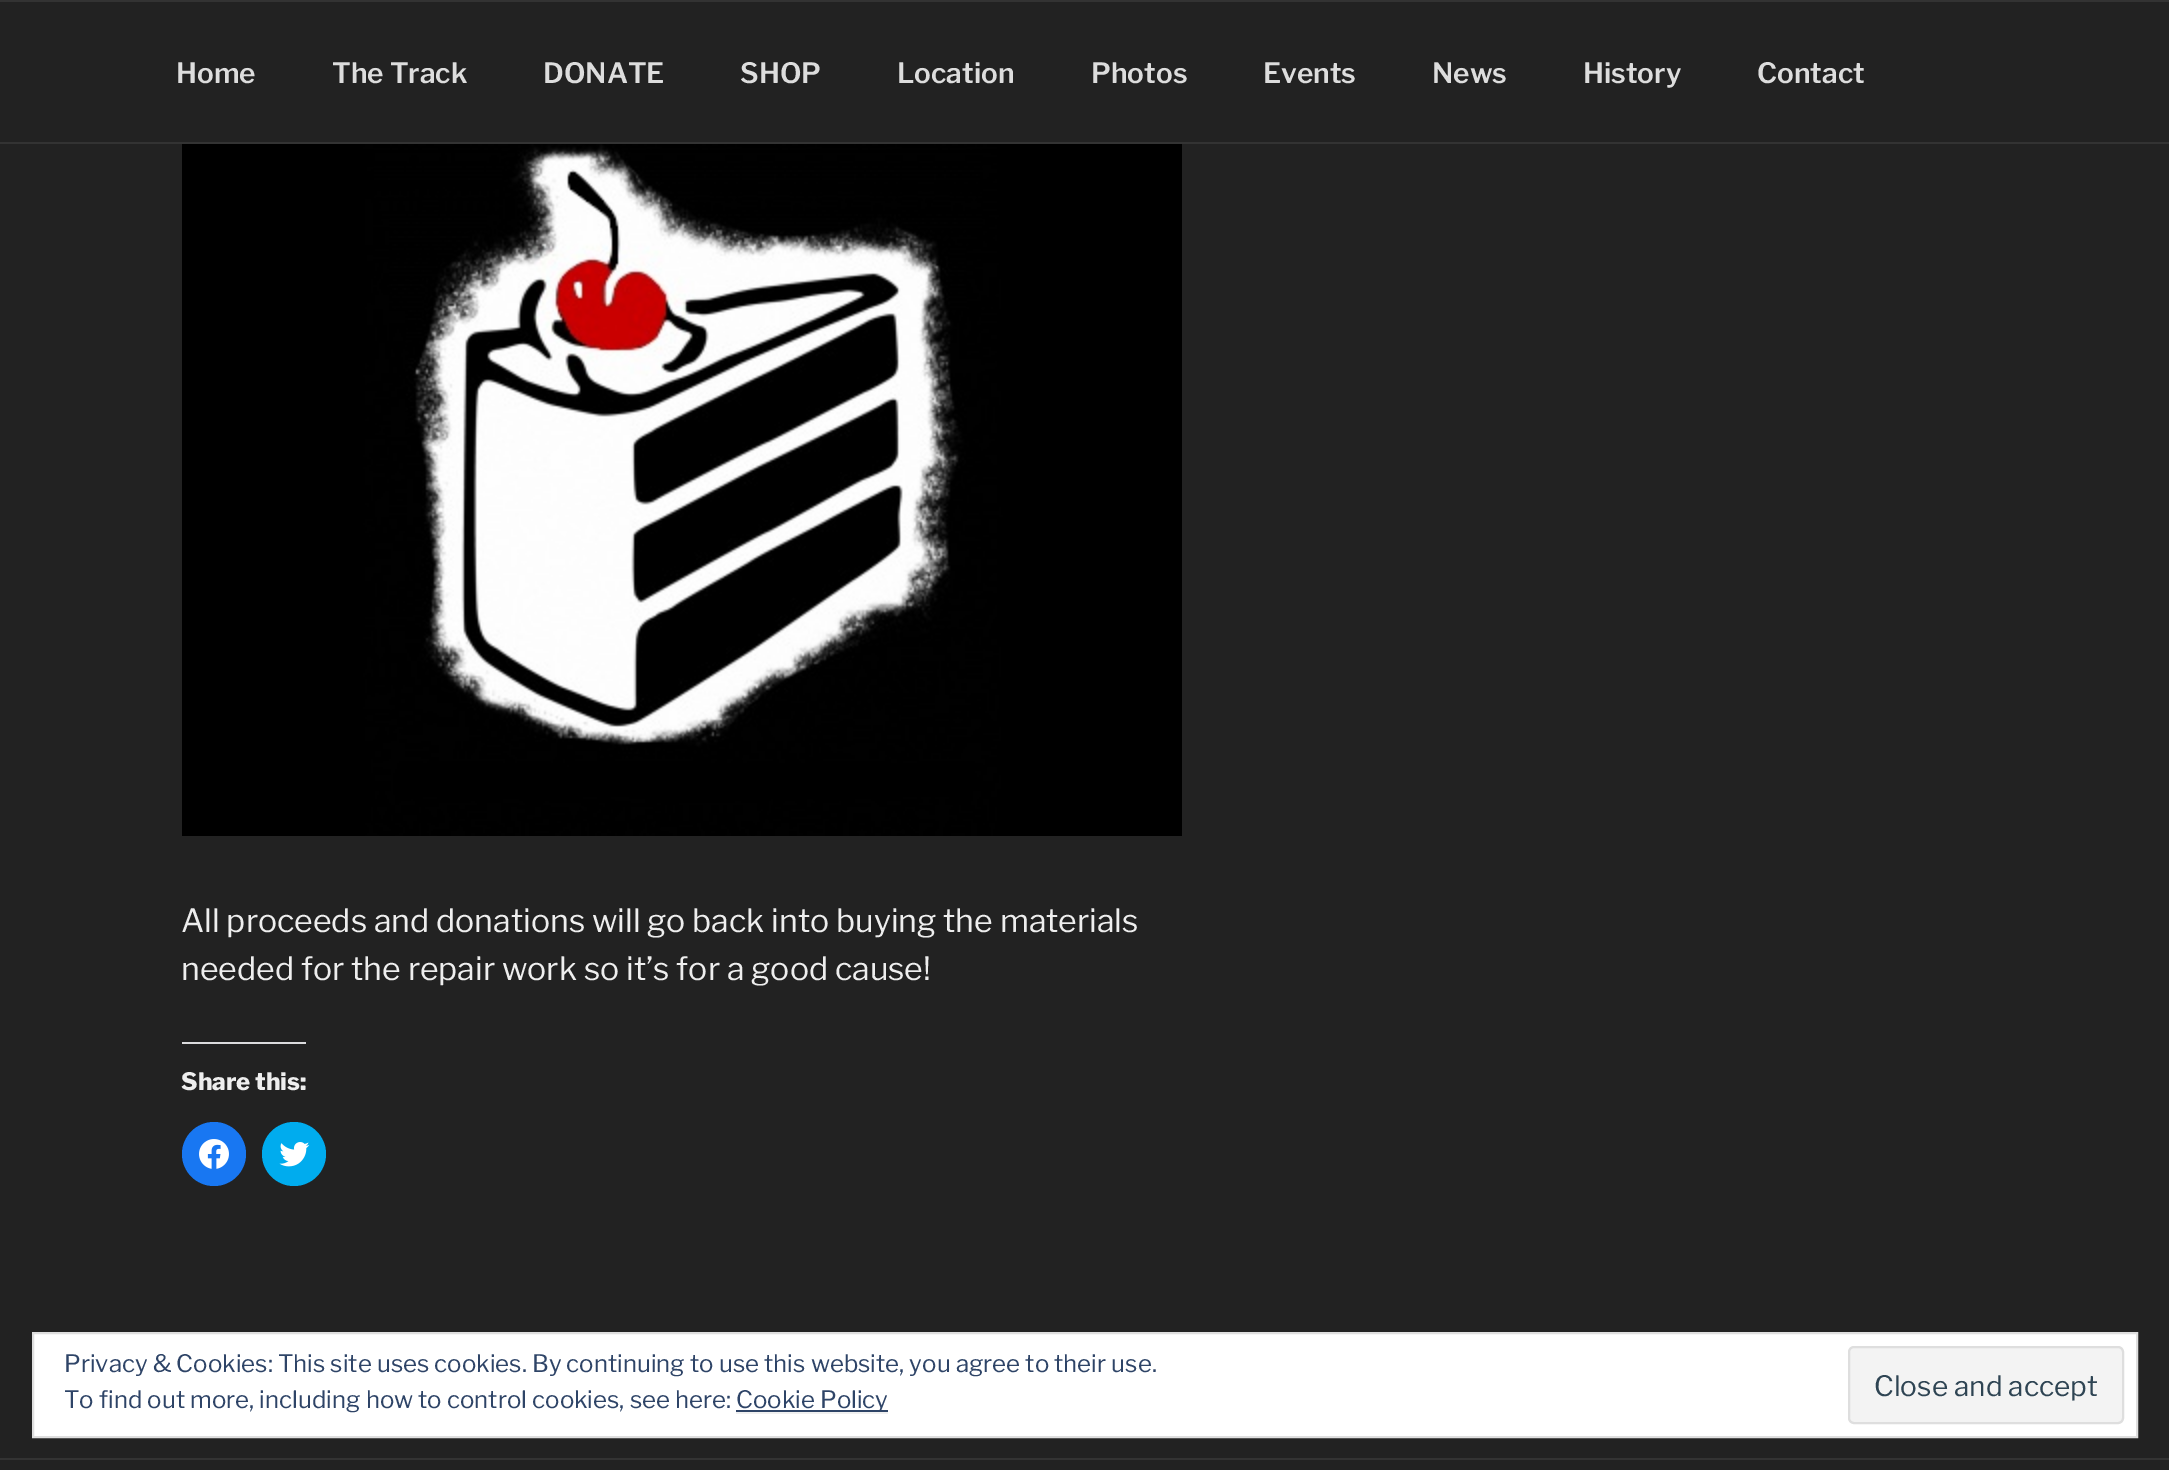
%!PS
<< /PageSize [2169 1470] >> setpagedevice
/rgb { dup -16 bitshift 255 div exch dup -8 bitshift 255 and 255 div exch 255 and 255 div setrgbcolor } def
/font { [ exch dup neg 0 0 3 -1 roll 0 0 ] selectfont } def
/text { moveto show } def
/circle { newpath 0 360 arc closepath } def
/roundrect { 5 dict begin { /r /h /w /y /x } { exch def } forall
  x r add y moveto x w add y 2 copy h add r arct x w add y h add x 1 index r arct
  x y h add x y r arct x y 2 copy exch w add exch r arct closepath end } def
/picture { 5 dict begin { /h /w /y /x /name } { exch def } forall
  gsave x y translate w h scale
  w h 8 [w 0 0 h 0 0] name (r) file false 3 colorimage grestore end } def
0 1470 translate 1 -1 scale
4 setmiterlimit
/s1 { /LibreFranklin-SemiBold 28 font 16#DDDDDD rgb } def
/s2 { /LibreFranklin-Regular 32 font 16#EEEEEE rgb } def
/s3 { /LibreFranklin-ExtraBold 24 font 16#EEEEEE rgb } def
/s4 { /LibreFranklin-Regular 24 font 16#2E4467 rgb } def
/s5 { /LibreFranklin-Regular 28 font 16#2E4453 rgb } def
16#222222 rgb
0 0 2169 1470 rectfill
16#333333 rgb
0 0 2169 2 rectfill
0 142 2169 2 rectfill
s1
(Home) 176 83 text
(The Track) 332 83 text
(DONATE) 543 83 text
(SHOP) 740 83 text
(Location) 897 83 text
(Photos) 1091 83 text
(Events) 1263 83 text
(News) 1432 83 text
(History) 1583 83 text
(Contact) 1757 83 text
(pic1.raw) 182 144 1000 692 picture
s2
(All proceeds and donations will go back into buying the materials) 181 932 text
(needed for the repair work so it’s for a good cause!) 181 980 text
16#DCDCDE rgb
182 1042 124 2 rectfill
s3
(Share this:) 181 1090 text
16#1877F2 rgb
214 1154 32 circle fill
(pic2.raw) 199 1139 30 30 picture
16#00ACEE rgb
294 1154 32 circle fill
(pic3.raw) 279 1142 31 25 picture
16#333333 rgb
0 1458 2169 2 rectfill
16#FFFFFF rgb
33 1333 moveto 2137 1333 lineto 2137 1437 lineto 33 1437 lineto closepath gsave fill grestore
16#DEDEDE rgb
2 setlinewidth
stroke
s4
(Privacy & Cookies: This site uses cookies. By continuing to use this website, you agree to their use.) 64 1372 text
(To find out more, including how to control cookies, see here:) 64 1408 text
736 1410 152 2 rectfill
(Cookie Policy) 736 1408 text
16#F0F0F0 rgb
736 1412 152 2 rectfill
16#F3F3F3 rgb
1849 1347 274 76 5 roundrect gsave fill grestore
16#DEDEDE rgb
stroke
s5
(Close and accept) 1874 1396 text
showpage
